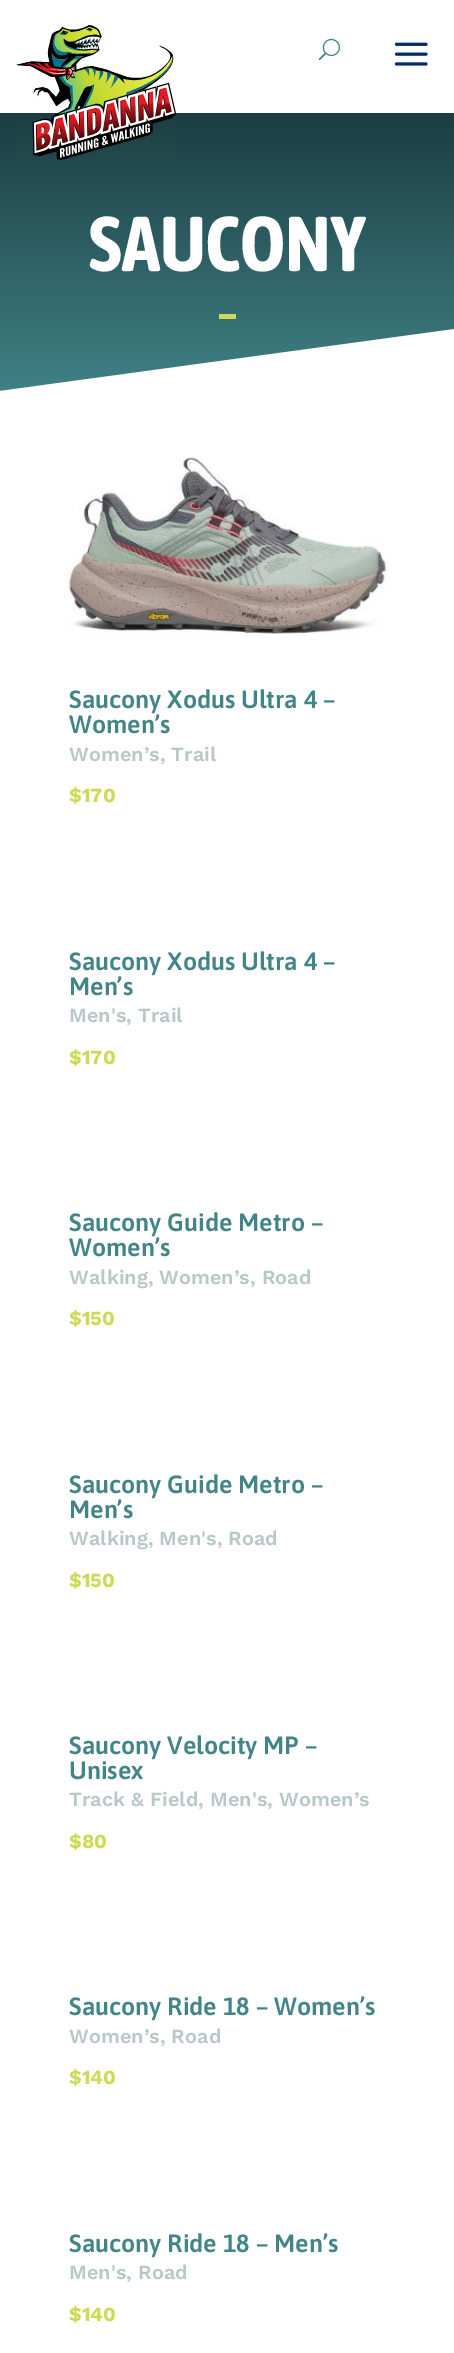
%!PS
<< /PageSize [454 2353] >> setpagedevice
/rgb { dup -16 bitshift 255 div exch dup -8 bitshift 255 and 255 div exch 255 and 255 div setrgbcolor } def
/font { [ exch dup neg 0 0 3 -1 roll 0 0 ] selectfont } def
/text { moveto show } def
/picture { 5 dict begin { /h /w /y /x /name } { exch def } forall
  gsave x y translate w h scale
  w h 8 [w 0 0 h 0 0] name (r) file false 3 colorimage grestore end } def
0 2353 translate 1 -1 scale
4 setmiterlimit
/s1 { /AsapCondensed-Bold 77.5 font 16#FFFFFF rgb } def
/s2 { /Asap-SemiBold 25 font 16#428588 rgb } def
/s3 { /WorkSans-SemiBold 20 font 16#B8C8C9 rgb } def
/s4 { /WorkSans-Bold 20 font 16#CEDA55 rgb } def
16#FFFFFF rgb
0 0 454 2353 rectfill
gsave 0 113 moveto 454 113 lineto 454 391 lineto 0 391 lineto closepath clip newpath
<< /ShadingType 2 /ColorSpace /DeviceRGB /Coords [228 111 228 391] /Extend [true true] /Function << /FunctionType 2 /Domain [0 1] /C0 [0.11 0.239 0.255] /C1 [0.247 0.506 0.522] /N 1 >> >> shfill grestore
(pic1.raw) 16 25 160 135 picture
(pic2.raw) 318 38 22 23 picture
(pic3.raw) 394 42 34 24 picture
s1
(SAUCONY) 89 271 text
16#CEDA55 rgb
219 314 17 5 rectfill
16#FFFFFF rgb
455 329 moveto 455 391 lineto 0 391 lineto closepath fill
(pic4.raw) 66 456 324 178 picture
s2
(Saucony Xodus Ultra 4 –) 69 708 text
(Women’s) 69 733 text
s3
(Women’s, Trail) 69 761 text
s4
($170) 69 802 text
s2
(Saucony Xodus Ultra 4 –) 69 970 text
(Men’s) 69 995 text
s3
(Men's, Trail) 69 1022 text
s4
($170) 69 1064 text
s2
(Saucony Guide Metro –) 69 1231 text
(Women’s) 69 1256 text
s3
(Walking, Women’s, Road) 69 1284 text
s4
($150) 69 1325 text
s2
(Saucony Guide Metro –) 69 1493 text
(Men’s) 69 1518 text
s3
(Walking, Men's, Road) 69 1545 text
s4
($150) 69 1587 text
s2
(Saucony Velocity MP –) 69 1754 text
(Unisex) 69 1779 text
s3
(Track & Field, Men's, Women’s) 69 1806 text
s4
($80) 69 1848 text
s2
(Saucony Ride 18 – Women’s) 69 2015 text
s3
(Women’s, Road) 69 2043 text
s4
($140) 69 2084 text
s2
(Saucony Ride 18 – Men’s) 69 2252 text
s3
(Men's, Road) 69 2279 text
s4
($140) 69 2321 text
showpage
